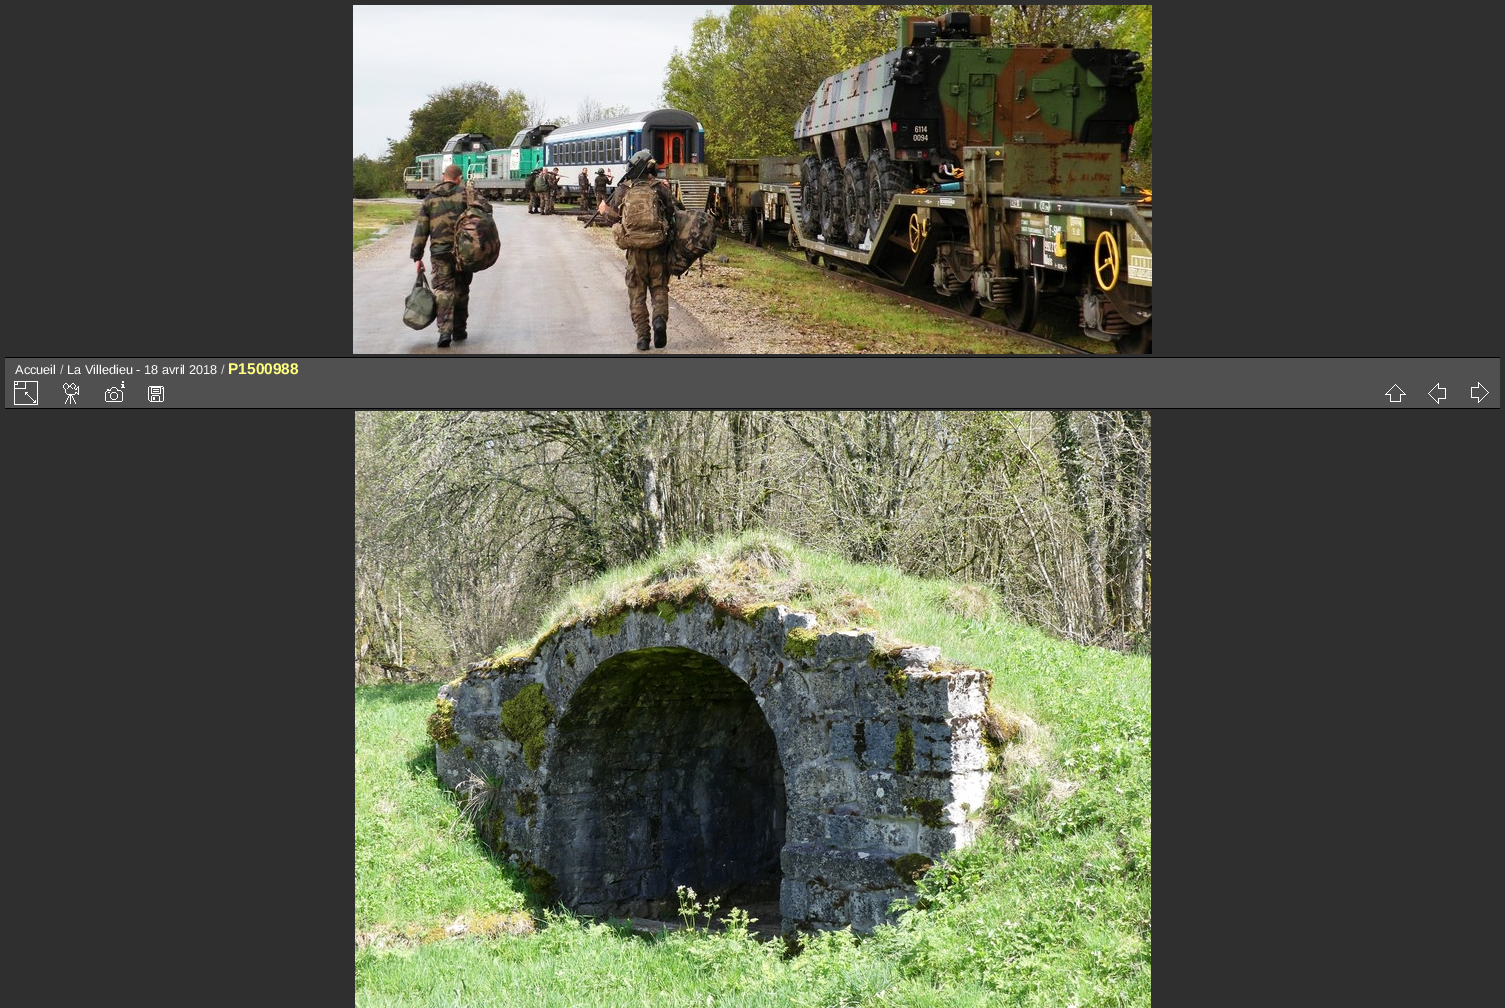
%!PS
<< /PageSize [1505 1008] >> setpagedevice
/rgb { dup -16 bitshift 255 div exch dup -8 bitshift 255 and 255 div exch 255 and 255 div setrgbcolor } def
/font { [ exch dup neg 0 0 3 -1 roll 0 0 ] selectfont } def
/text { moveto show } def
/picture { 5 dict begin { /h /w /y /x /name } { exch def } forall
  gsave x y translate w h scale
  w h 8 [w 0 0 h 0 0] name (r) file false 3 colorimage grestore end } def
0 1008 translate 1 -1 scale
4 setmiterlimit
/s1 { /LiberationSans-Regular 12.75 font 16#FFFFFF rgb } def
/s2 { /LiberationSans-Regular 12.75 font 16#D0D0D0 rgb } def
/s3 { /LiberationSans-Bold 15.5 font 16#FFFF80 rgb } def
16#2F2F2F rgb
0 0 1505 1008 rectfill
(pic1.raw) 353 5 799 349 picture
16#505050 rgb
5 358 1495 50 rectfill
16#000000 rgb
5 408 1495 1 rectfill
(pic2.raw) 14 381 24 24 picture
(pic3.raw) 63 383 16 21 picture
(pic4.raw) 105 381 20 21 picture
(pic5.raw) 148 386 16 16 picture
(pic6.raw) 1385 384 21 18 picture
(pic7.raw) 1428 383 18 21 picture
(pic8.raw) 1471 382 18 21 picture
5 357 1495 1 rectfill
s1
(Accueil) 15 374 text
s2
(/) 60 374 text
s1
(La Villedieu - 18 avril 2018) 67 374 text
s2
(/) 221 374 text
s3
(P1500988) 228 374 text
(pic9.raw) 355 411 796 597 picture
showpage
